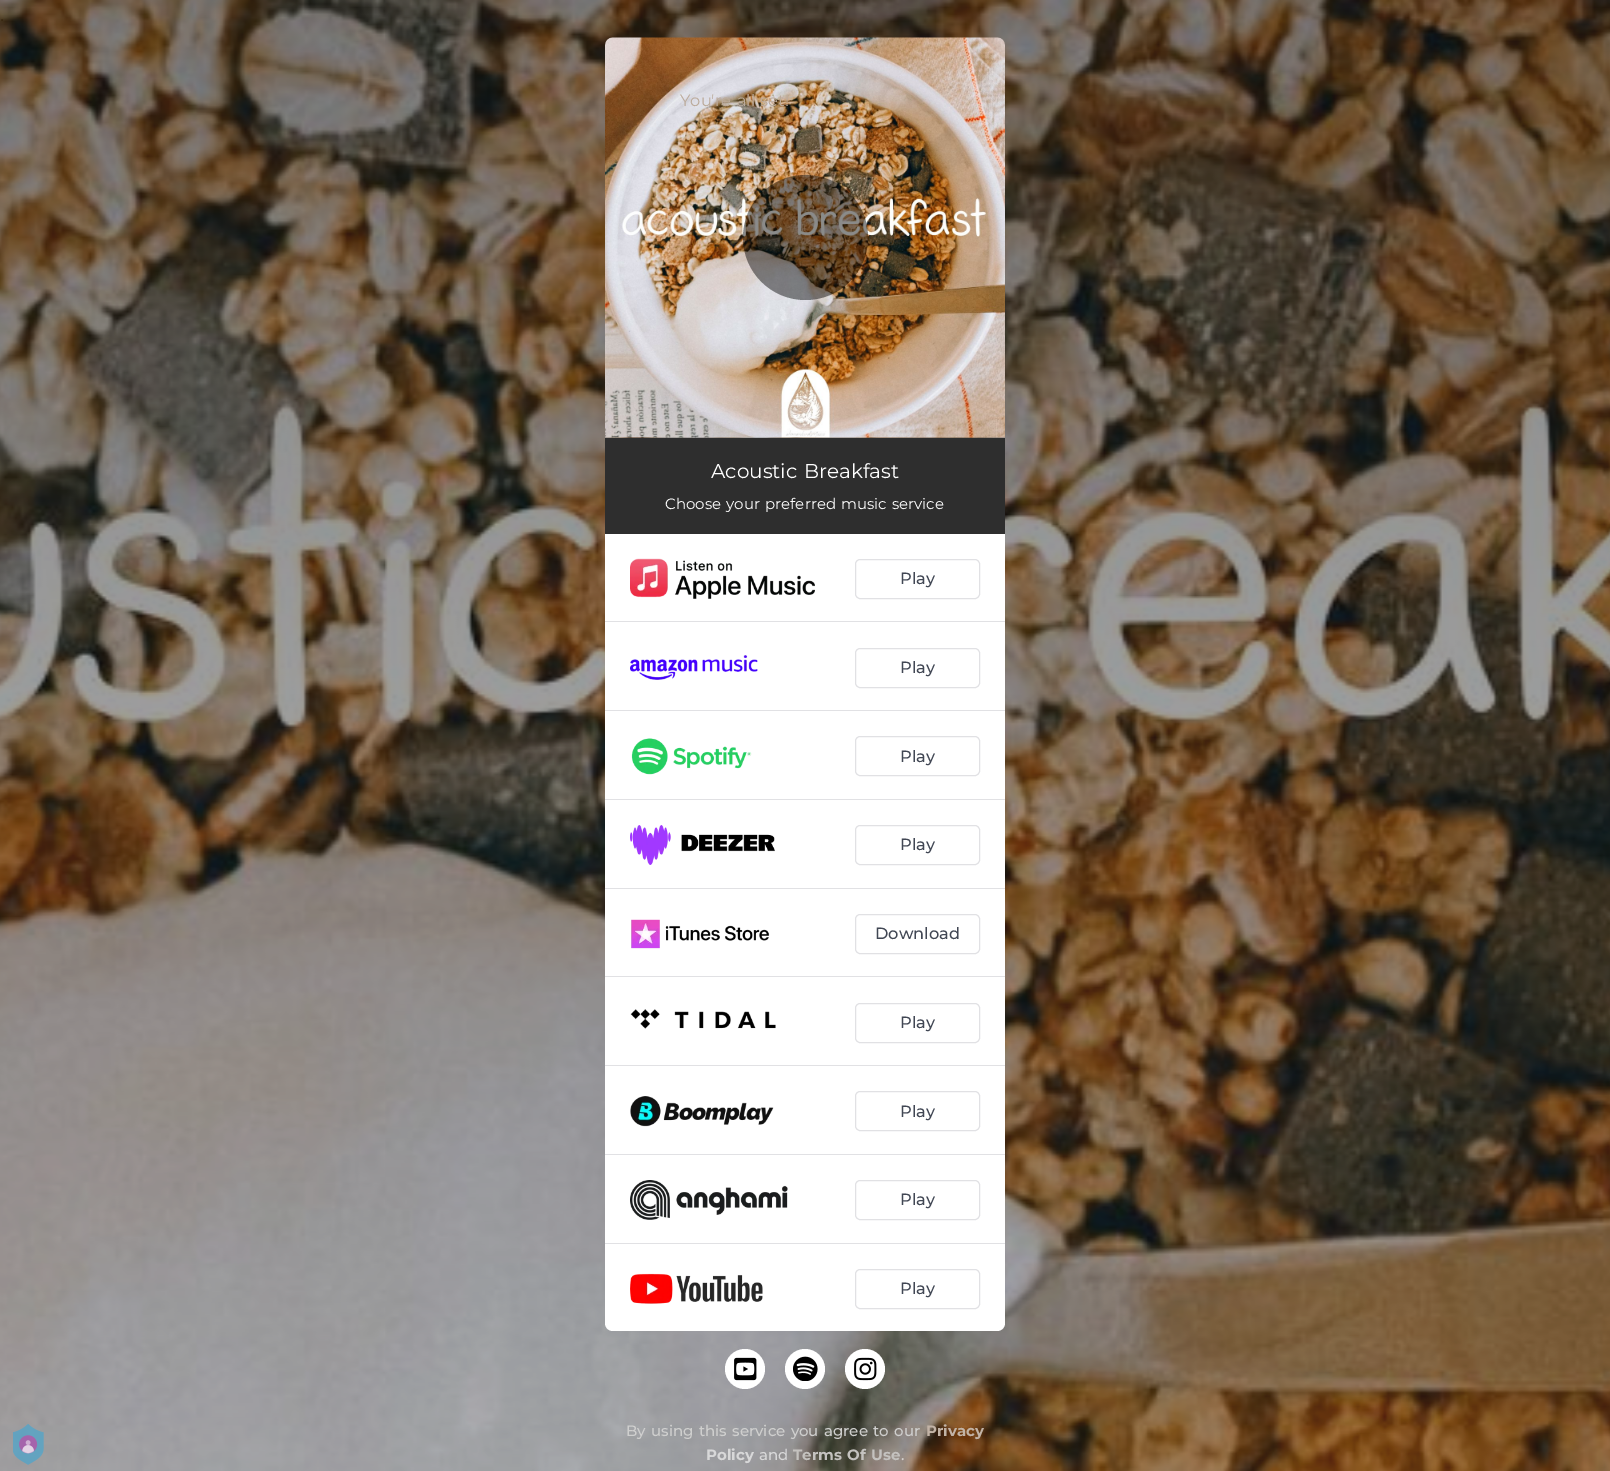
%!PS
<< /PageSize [1610 1471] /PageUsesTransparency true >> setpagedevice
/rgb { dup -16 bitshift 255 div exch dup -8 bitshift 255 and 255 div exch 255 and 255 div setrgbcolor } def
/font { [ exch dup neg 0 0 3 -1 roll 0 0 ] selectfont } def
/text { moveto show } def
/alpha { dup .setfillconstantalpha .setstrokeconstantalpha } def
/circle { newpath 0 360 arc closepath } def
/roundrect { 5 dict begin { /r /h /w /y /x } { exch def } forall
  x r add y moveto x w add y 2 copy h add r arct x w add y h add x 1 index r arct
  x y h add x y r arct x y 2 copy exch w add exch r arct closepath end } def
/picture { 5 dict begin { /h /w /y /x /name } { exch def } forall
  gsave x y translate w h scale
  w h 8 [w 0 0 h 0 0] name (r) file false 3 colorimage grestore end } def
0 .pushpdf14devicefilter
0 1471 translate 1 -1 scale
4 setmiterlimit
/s1 { /Montserrat-Medium 16.25 font 16#414754 rgb } def
/s2 { /Montserrat-Bold 15 font 16#C2B3A6 rgb } def
/s3 { /Montserrat-Bold 15 font 16#D8D8D9 rgb } def
/s4 { /Montserrat-Medium 15 font 16#D8D8D9 rgb } def
/s5 { /Montserrat-Medium 15 font 16#D5D1CE rgb } def
16#FFFFFF rgb
0 0 1610 1471 rectfill
(pic2.raw) 0 0 1610 1471 picture
(pic1.raw) 13 1424 31 41 picture
(pic3.raw) 605 37 400 401 picture
0.45 alpha
16#000000 rgb
805.5 237.5 62.5 circle fill
/Montserrat-Regular 16.25 font
1 alpha
16#BBAA9A rgb
680 106 moveto 1.25 0 32 (You're all set!) widthshow
16#2E2E2E rgb
605 438 400 96 rectfill
/Montserrat-Regular 20 font
16#FFFFFF rgb
711 478 moveto 1.25 0 32 (Acoustic Breakfast) widthshow
/Montserrat-Regular 15 font
665 509 moveto 1.25 0 32 (Choose your preferred music service) widthshow
605 534 moveto 1005 534 lineto 1005 1323 lineto 1005 1327.5 1001.5 1331 997 1331 curveto 613 1331 lineto 608.5 1331 605 1327.5 605 1323 curveto closepath fill
16#E1E1E4 rgb
605 621 400 1 rectfill
(pic4.raw) 630 558 185 41 picture
855.5 559.5 124 39 4.5 roundrect stroke
s1
(Play) 900 584 text
16#E1E1E4 rgb
605 710 400 1 rectfill
(pic5.raw) 630 655 128 25 picture
855.5 648.5 124 39 4.5 roundrect stroke
s1
(Play) 900 673 text
16#E1E1E4 rgb
605 799 400 1 rectfill
(pic6.raw) 631 738 121 37 picture
855.5 736.5 124 39 4.5 roundrect stroke
s1
(Play) 900 762 text
16#E1E1E4 rgb
605 888 400 1 rectfill
(pic7.raw) 630 825 145 40 picture
855.5 825.5 124 39 4.5 roundrect stroke
s1
(Play) 900 850 text
16#E1E1E4 rgb
605 976 400 1 rectfill
(pic8.raw) 631 919 139 30 picture
855.5 914.5 124 39 4.5 roundrect stroke
s1
(Download) 875 939 text
16#E1E1E4 rgb
605 1065 400 1 rectfill
(pic9.raw) 630 1009 146 20 picture
855.5 1003.5 124 39 4.5 roundrect stroke
s1
(Play) 900 1028 text
16#E1E1E4 rgb
605 1154 400 1 rectfill
(pic10.raw) 630 1096 144 31 picture
855.5 1091.5 124 39 4.5 roundrect stroke
s1
(Play) 900 1117 text
16#E1E1E4 rgb
605 1243 400 1 rectfill
(pic11.raw) 630 1180 158 40 picture
855.5 1180.5 124 39 4.5 roundrect stroke
s1
(Play) 900 1205 text
(pic12.raw) 630 1273 133 31 picture
16#E1E1E4 rgb
855.5 1269.5 124 39 4.5 roundrect stroke
s1
(Play) 900 1294 text
16#FFFFFF rgb
745 1369 20 circle fill
(pic13.raw) 734 1357 23 24 picture
805 1369 20 circle fill
(pic14.raw) 793 1356 25 25 picture
865 1369 20 circle fill
(pic15.raw) 854 1357 23 24 picture
/Montserrat-Medium 15 font
16#CFCFCE rgb
626 1436 moveto 1.25 0 32 (By using this service you agree to our) widthshow
s2
(Privacy) 926 1436 text
s3
(Policy) 706 1460 text
s4
(and) 759 1460 text
/Montserrat-Bold 15 font
16#C4C2BF rgb
793 1460 moveto 1.25 0 32 (Terms Of Use) widthshow
s5
(.) 901 1460 text
.poppdf14devicefilter showpage
